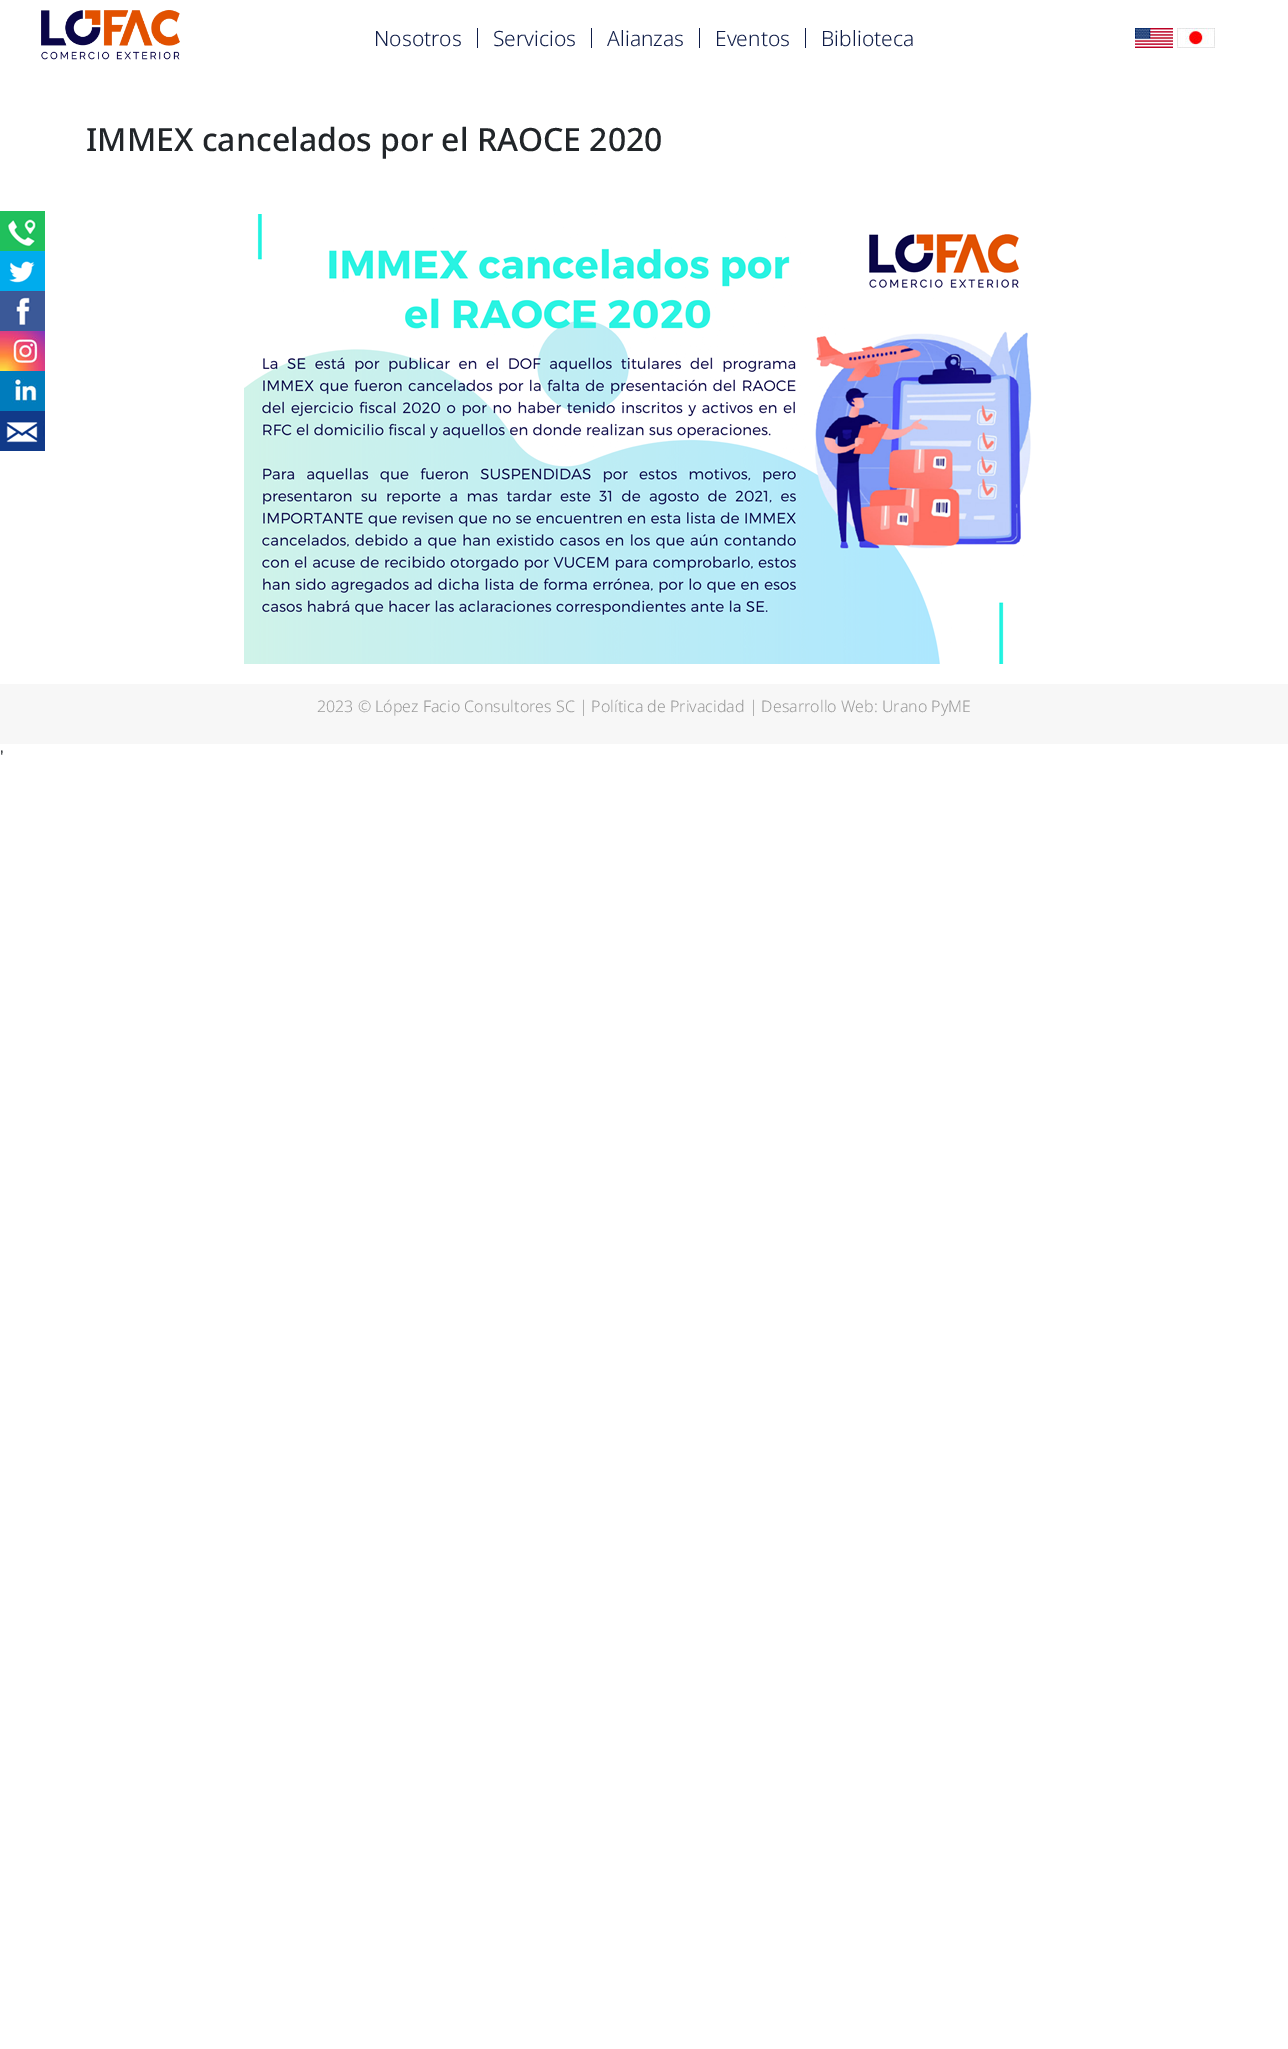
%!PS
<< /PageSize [1288 2049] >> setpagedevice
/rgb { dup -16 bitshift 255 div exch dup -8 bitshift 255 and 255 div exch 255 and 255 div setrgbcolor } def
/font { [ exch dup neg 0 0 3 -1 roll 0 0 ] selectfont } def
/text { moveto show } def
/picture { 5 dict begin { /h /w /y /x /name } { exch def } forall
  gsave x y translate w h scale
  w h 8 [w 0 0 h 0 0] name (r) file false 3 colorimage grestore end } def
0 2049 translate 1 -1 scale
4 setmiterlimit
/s1 { /NotoSans-Light 21 font 16#101D48 rgb } def
/s2 { /NotoSans-Medium 32 font 16#212529 rgb } def
/s3 { /NotoSans-Light 16 font 16#999999 rgb } def
/s4 { /NotoSans-Regular 16 font 16#212529 rgb } def
16#FFFFFF rgb
0 0 1288 2049 rectfill
(pic1.raw) 41 9 139 51 picture
s1
(Nosotros) 374 46 text
477 28 1 20 rectfill
(Servicios) 493 46 text
591 28 1 20 rectfill
(Alianzas) 607 46 text
699 28 1 20 rectfill
(Eventos) 715 46 text
805 28 1 20 rectfill
(Biblioteca) 821 46 text
(pic2.raw) 1135 28 38 20 picture
(pic3.raw) 1177 28 38 20 picture
s2
(IMMEX cancelados por el RAOCE 2020) 86 151 text
(pic4.raw) 244 214 788 450 picture
16#F7F7F7 rgb
0 684 1288 60 rectfill
s3
(2023 © López Facio Consultores SC | Política de Privacidad | Desarrollo Web: Urano PyME) 317 712 text
s4
(') 0 762 text
(pic5.raw) 0 211 45 40 picture
(pic6.raw) 0 251 45 40 picture
(pic7.raw) 0 291 45 40 picture
(pic8.raw) 0 331 45 40 picture
(pic9.raw) 0 371 45 40 picture
(pic10.raw) 0 411 45 40 picture
showpage
